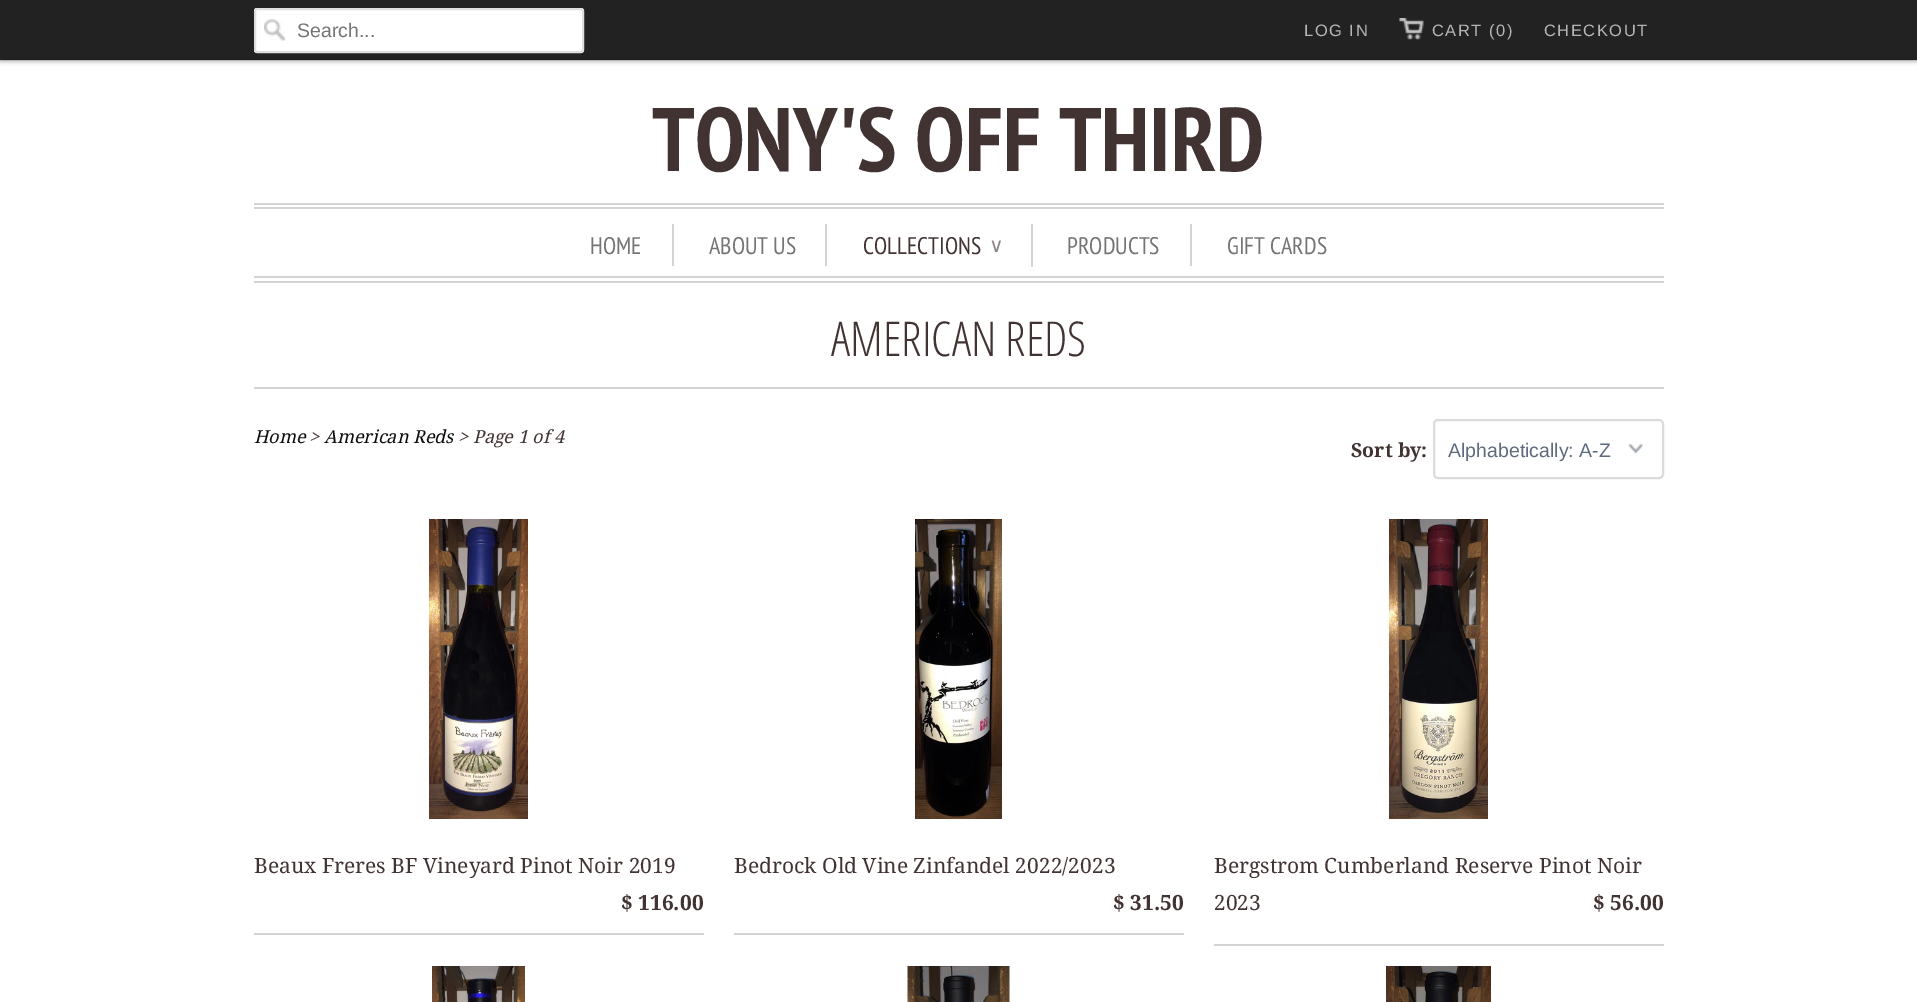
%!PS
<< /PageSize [1917 1002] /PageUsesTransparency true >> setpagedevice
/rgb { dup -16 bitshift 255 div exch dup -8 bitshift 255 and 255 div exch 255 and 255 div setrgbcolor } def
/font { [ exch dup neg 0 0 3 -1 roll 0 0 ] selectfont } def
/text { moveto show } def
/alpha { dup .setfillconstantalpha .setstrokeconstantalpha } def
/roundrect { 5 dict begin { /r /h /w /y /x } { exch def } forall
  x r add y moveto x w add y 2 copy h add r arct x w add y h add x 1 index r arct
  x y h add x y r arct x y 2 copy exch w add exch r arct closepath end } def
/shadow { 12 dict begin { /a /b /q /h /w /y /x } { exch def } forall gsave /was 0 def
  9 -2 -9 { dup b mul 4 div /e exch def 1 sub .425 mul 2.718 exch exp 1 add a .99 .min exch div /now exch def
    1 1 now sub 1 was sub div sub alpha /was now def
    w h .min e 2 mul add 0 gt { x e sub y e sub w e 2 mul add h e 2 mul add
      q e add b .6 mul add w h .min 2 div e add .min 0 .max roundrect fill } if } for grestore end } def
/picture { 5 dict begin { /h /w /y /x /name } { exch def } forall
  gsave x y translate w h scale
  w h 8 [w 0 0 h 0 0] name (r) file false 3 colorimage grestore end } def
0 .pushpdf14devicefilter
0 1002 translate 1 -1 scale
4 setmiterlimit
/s1 { /LiberationSans-Regular 19.5 font 16#757575 rgb } def
/s2 { /PTSansNarrow-Bold 90 font 16#423333 rgb } def
/s3 { /PTSansNarrow-Regular 24 font 16#757575 rgb } def
/s4 { /PTSansNarrow-Regular 24 font 16#423333 rgb } def
/s5 { /DejaVuSans-Regular 20 font 16#8E8585 rgb } def
/s6 { /OpenSansCondensed-Light 48 font 16#423333 rgb } def
/s7 { /DroidSerif-Italic 18 font 16#0D0F0E rgb } def
/s8 { /DroidSerif-Italic 18 font 16#423333 rgb } def
/s9 { /DroidSerif-Bold 19.5 font 16#423333 rgb } def
/s10 { /LiberationSans-Regular 19.5 font 16#5F6A7D rgb } def
/s11 { /DroidSerif-Regular 21 font 16#423333 rgb } def
/s12 { /DroidSerif-Bold 21 font 16#423333 rgb } def
16#FFFFFF rgb
0 0 1917 1002 rectfill
16#000000 rgb
0 2 1917 60 0 2 0.25 shadow
16#222222 rgb
0 0 1917 60 rectfill
0.1 alpha
16#000000 rgb
0 59 1917 2 rectfill
1 alpha
16#FFFFFF rgb
254 8 330 45 3 roundrect fill
(pic1.raw) 264 19 21 22 picture
16#DFDFDF rgb
2 setlinewidth
255 9 328 43 2 roundrect stroke
s1
(Search...) 297 37 text
/LiberationSans-Regular 16.5 font
16#B6B6B6 rgb
1304 36 moveto 1.5 0 (LOG IN) ashow
(pic2.raw) 1399 18 25 22 picture
1432 36 moveto 1.5 0 (CART \(0\)) ashow
1544 36 moveto 1.5 0 (CHECKOUT) ashow
s2
(TONY'S OFF THIRD) 652 171 text
16#D3D3D3 rgb
254 203 1410 2 rectfill
254 207 1410 2 rectfill
254 276 1410 2 rectfill
254 281 1410 2 rectfill
672 224 2 42 rectfill
s3
(HOME) 590 254 text
16#D3D3D3 rgb
825 224 2 42 rectfill
s3
(ABOUT US) 709 254 text
16#D3D3D3 rgb
1031 224 2 43 rectfill
s4
(COLLECTIONS) 863 254 text
s5
(∨) 989 252 text
16#D3D3D3 rgb
1190 224 2 42 rectfill
s3
(PRODUCTS) 1067 254 text
(GIFT CARDS) 1227 254 text
16#D3D3D3 rgb
254 387 1410 2 rectfill
s6
(AMERICAN REDS) 831 356 text
s7
(Home) 254 443 text
s8
(>) 309 443 text
s7
(American Reds) 324 443 text
s8
(> Page 1 of 4) 458 443 text
s9
(Sort by:) 1351 457 text
(pic3.raw) 1628 443 15 11 picture
16#D9DBDC rgb
1434 420 229 58 4 roundrect stroke
s10
(Alphabetically: A-Z) 1448 457 text
16#D3D3D3 rgb
254 933 450 2 rectfill
(pic4.raw) 429 519 99 300 picture
s11
(Beaux Freres BF Vineyard Pinot Noir 2019) 254 873 text
s12
($ 116.00) 621 910 text
16#D3D3D3 rgb
734 933 450 2 rectfill
(pic5.raw) 915 519 87 300 picture
s11
(Bedrock Old Vine Zinfandel 2022/2023) 734 873 text
s12
($ 31.50) 1113 910 text
16#D3D3D3 rgb
1214 944 450 2 rectfill
(pic6.raw) 1389 519 99 300 picture
s11
(Bergstrom Cumberland Reserve Pinot Noir) 1214 873 text
(2023) 1214 910 text
s12
($ 56.00) 1593 910 text
(pic7.raw) 432 966 93 36 picture
(pic8.raw) 907 966 103 36 picture
(pic9.raw) 1386 966 105 36 picture
.poppdf14devicefilter showpage
